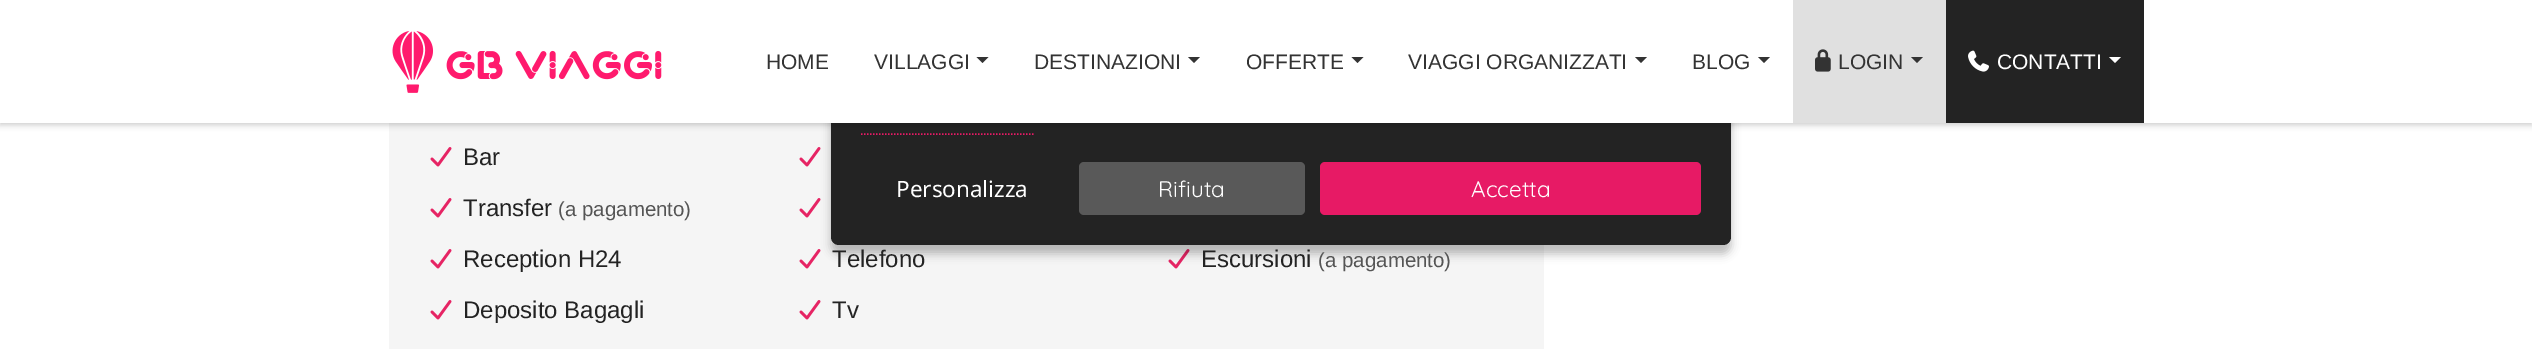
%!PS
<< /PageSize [2532 349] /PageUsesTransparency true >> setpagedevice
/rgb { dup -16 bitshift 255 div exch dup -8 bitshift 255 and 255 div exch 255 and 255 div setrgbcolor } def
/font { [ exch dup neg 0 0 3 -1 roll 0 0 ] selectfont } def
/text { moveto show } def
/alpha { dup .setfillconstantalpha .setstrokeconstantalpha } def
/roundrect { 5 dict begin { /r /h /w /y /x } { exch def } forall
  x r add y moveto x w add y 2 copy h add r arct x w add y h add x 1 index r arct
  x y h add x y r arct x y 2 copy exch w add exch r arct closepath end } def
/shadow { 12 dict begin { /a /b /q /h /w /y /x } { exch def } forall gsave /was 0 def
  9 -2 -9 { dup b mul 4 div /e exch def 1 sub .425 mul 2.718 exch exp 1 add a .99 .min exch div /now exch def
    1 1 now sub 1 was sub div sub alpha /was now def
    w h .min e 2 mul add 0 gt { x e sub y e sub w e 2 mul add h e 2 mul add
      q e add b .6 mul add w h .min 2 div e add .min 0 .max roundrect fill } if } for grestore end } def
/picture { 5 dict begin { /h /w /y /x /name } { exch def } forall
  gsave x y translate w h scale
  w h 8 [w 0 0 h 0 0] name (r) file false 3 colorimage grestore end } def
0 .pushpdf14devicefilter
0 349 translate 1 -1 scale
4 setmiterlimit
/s1 { /LiberationSans-Regular 21 font 16#333333 rgb } def
/s2 { /LiberationSans-Regular 21 font 16#FFFFFF rgb } def
/s3 { /LiberationSans-Regular 24 font 16#232323 rgb } def
/s4 { /LiberationSans-Regular 20.5 font 16#555555 rgb } def
/s5 { /NotoSans-Regular 22.5 font 16#FFFFFF rgb } def
/s6 { /Quicksand-Regular 22.5 font 16#FFFFFF rgb } def
16#FFFFFF rgb
0 0 2532 349 rectfill
16#F5F5F5 rgb
389 123 1155 226 rectfill
(pic4.raw) 799 147 22 20 picture
(pic4.raw) 799 198 22 20 picture
(pic4.raw) 799 249 22 20 picture
(pic4.raw) 1168 249 22 20 picture
16#000000 rgb
831 -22 900 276 8 4.5 0.25 shadow
16#232323 rgb
831 -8 900 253 8 roundrect fill
16#E71A65 rgb
1.5 setlinewidth
[1.5 1.5] 0 setdash
861 134 moveto 1033.5 134 lineto stroke
16#000000 rgb
0 2 2532 123 0 3 0.2 shadow
16#FFFFFF rgb
0 0 2532 123 rectfill
(pic1.raw) 392 31 270 62 picture
s1
(HOME) 766 69 text
(VILLAGGI) 874 69 text
976.5 57 moveto 988.5 57 lineto 982.5 63 lineto closepath fill
(DESTINAZIONI) 1034 69 text
1188 57 moveto 1200 57 lineto 1194 63 lineto closepath fill
(OFFERTE) 1246 69 text
1351.5 57 moveto 1363.5 57 lineto 1357.5 63 lineto closepath fill
(VIAGGI ORGANIZZATI) 1408 69 text
1635 57 moveto 1647 57 lineto 1641 63 lineto closepath fill
(BLOG) 1692 69 text
1758 57 moveto 1770 57 lineto 1764 63 lineto closepath fill
16#E0E0E0 rgb
1793 0 153 123 rectfill
(pic2.raw) 1815 49 16 23 picture
s1
(LOGIN) 1838 69 text
1911 57 moveto 1923 57 lineto 1917 63 lineto closepath fill
16#232323 rgb
1946 0 198 123 rectfill
(pic3.raw) 1968 50 21 22 picture
s2
(CONTATTI) 1997 69 text
2109 57 moveto 2121 57 lineto 2115 63 lineto closepath fill
(pic4.raw) 430 147 22 20 picture
s3
(Bar) 463 165 text
(pic4.raw) 430 198 22 20 picture
(Transfer) 463 216 text
s4
(\(a pagamento\)) 558 216 text
(pic4.raw) 430 249 22 20 picture
s3
(Reception H24) 463 267 text
(pic4.raw) 430 300 22 20 picture
(Deposito Bagagli) 463 318 text
(Telefono) 832 267 text
(pic4.raw) 799 300 22 20 picture
(Tv) 832 318 text
(Escursioni) 1201 267 text
s4
(\(a pagamento\)) 1318 267 text
s5
(Personalizza) 896 197 text
16#595959 rgb
1079 162 226 53 5 roundrect fill
s6
(Rifiuta) 1158 197 text
16#E71A65 rgb
1320 162 381 53 5 roundrect fill
s6
(Accetta) 1471 197 text
.poppdf14devicefilter showpage
